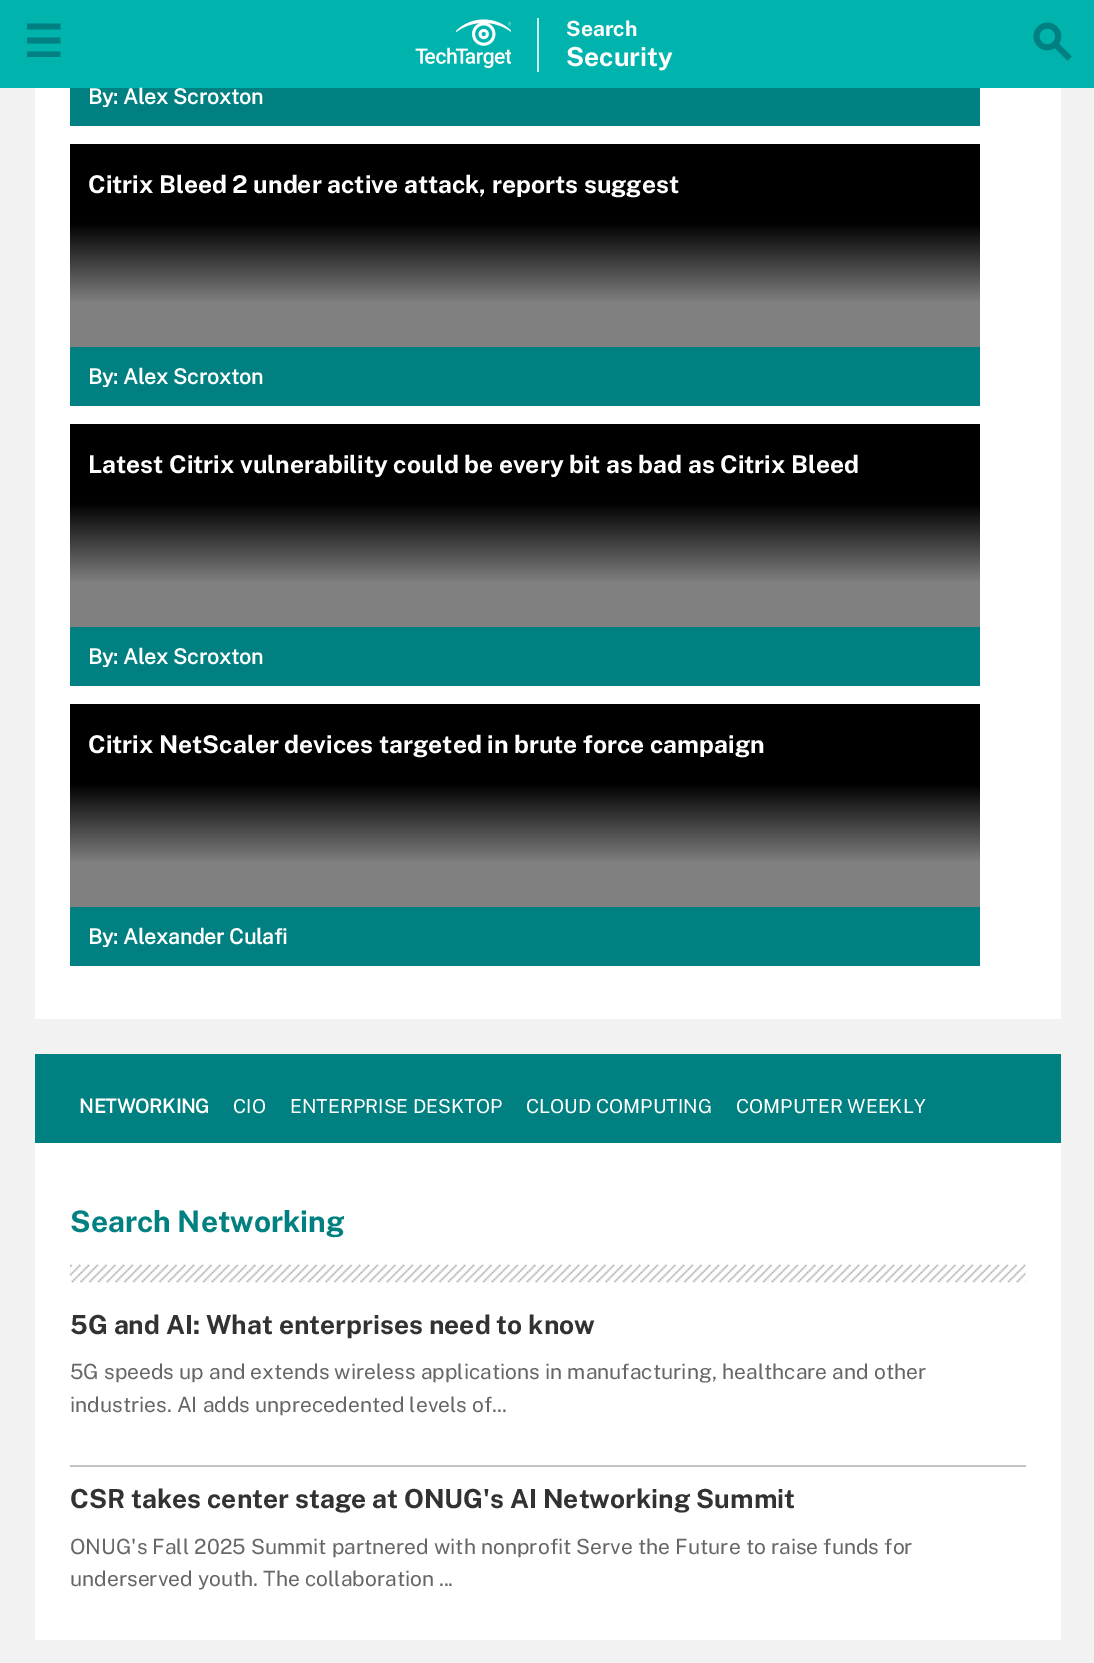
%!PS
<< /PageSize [1094 1663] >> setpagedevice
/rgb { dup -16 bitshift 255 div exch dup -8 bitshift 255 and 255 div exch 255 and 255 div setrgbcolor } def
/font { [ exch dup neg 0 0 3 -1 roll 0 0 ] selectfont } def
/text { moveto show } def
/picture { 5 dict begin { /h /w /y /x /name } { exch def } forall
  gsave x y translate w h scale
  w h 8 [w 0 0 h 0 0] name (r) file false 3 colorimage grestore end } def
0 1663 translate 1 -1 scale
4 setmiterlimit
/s1 { /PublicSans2-Bold 21 font 16#FFFFFF rgb } def
/s2 { /PublicSans2-Bold 26.25 font 16#FFFFFF rgb } def
/s3 { /PublicSans-Bold 21 font 16#FFFFFF rgb } def
/s4 { /PublicSans2-Bold 24.5 font 16#FFFFFF rgb } def
/s5 { /PublicSans-Bold 19.25 font 16#FFFFFF rgb } def
/s6 { /PublicSans-Regular 19.25 font 16#FFFFFF rgb } def
/s7 { /PublicSans2-Bold 29.75 font 16#008080 rgb } def
/s8 { /PublicSans2-Bold 26.25 font 16#323232 rgb } def
/s9 { /PublicSans-Regular 21 font 16#666666 rgb } def
16#F2F2F2 rgb
0 0 1094 1663 rectfill
16#00B3AC rgb
0 0 1094 88 rectfill
16#008080 rgb
27 23.5 moveto 60.5 23.5 lineto 60.5 29.5 lineto 27 29.5 lineto closepath 27 37.5 moveto 60.5 37.5 lineto 60.5 43.5 lineto 27 43.5 lineto closepath 27 51.5 moveto 60.5 51.5 lineto 60.5 57 lineto 27 57 lineto closepath fill
(pic1.raw) 415 19 96 50 picture
16#CEF0EE rgb
537 18 2 54 rectfill
s1
(Search) 566 36 text
s2
(Security) 566 66 text
(pic2.raw) 1033 22 39 39 picture
35 88 1026 931 rectfill
16#008080 rgb
70 88 910 38 rectfill
gsave
88 86 866 21 rectclip
s3
(By:) 88 104 text
grestore
s3
(Alex Scroxton) 123 104 text
gsave 70 144 moveto 980 144 lineto 980 303 lineto 70 303 lineto closepath clip newpath
<< /ShadingType 2 /ColorSpace /DeviceRGB /Coords [525 143 525 303] /Extend [true true] /Function << /FunctionType 3 /Domain [0 1] /Functions [<< /FunctionType 2 /Domain [0 1] /C0 [0 0 0] /C1 [0 0 0] /N 1 >> << /FunctionType 2 /Domain [0 1] /C0 [0 0 0] /C1 [0.502 0.502 0.502] /N 1 >>] /Bounds [0.5] /Encode [0 1 0 1] >> >> shfill grestore
s4
(Citrix Bleed 2 under active attack, reports suggest) 88 193 text
16#808080 rgb
70 303 910 44 rectfill
16#008080 rgb
70 347 910 59 rectfill
gsave
88 366 866 21 rectclip
s3
(By:) 88 384 text
grestore
s3
(Alex Scroxton) 123 384 text
gsave 70 424 moveto 980 424 lineto 980 583 lineto 70 583 lineto closepath clip newpath
<< /ShadingType 2 /ColorSpace /DeviceRGB /Coords [525 423 525 583] /Extend [true true] /Function << /FunctionType 3 /Domain [0 1] /Functions [<< /FunctionType 2 /Domain [0 1] /C0 [0 0 0] /C1 [0 0 0] /N 1 >> << /FunctionType 2 /Domain [0 1] /C0 [0 0 0] /C1 [0.502 0.502 0.502] /N 1 >>] /Bounds [0.5] /Encode [0 1 0 1] >> >> shfill grestore
s4
(Latest Citrix vulnerability could be every bit as bad as Citrix Bleed) 88 473 text
16#808080 rgb
70 583 910 44 rectfill
16#008080 rgb
70 627 910 59 rectfill
gsave
88 646 866 21 rectclip
s3
(By:) 88 664 text
grestore
s3
(Alex Scroxton) 123 664 text
gsave 70 704 moveto 980 704 lineto 980 863 lineto 70 863 lineto closepath clip newpath
<< /ShadingType 2 /ColorSpace /DeviceRGB /Coords [525 704 525 863] /Extend [true true] /Function << /FunctionType 3 /Domain [0 1] /Functions [<< /FunctionType 2 /Domain [0 1] /C0 [0 0 0] /C1 [0 0 0] /N 1 >> << /FunctionType 2 /Domain [0 1] /C0 [0 0 0] /C1 [0.502 0.502 0.502] /N 1 >>] /Bounds [0.5] /Encode [0 1 0 1] >> >> shfill grestore
s4
(Citrix NetScaler devices targeted in brute force campaign) 88 753 text
16#808080 rgb
70 863 910 44 rectfill
16#008080 rgb
70 907 910 59 rectfill
gsave
88 926 866 21 rectclip
s3
(By:) 88 944 text
grestore
s3
(Alexander Culafi) 123 944 text
35 1143 1026 497 rectfill
16#008080 rgb
35 1054 1026 89 rectfill
s5
(NETWORKING) 79 1113 text
s6
(CIO) 233 1113 text
(ENTERPRISE DESKTOP) 290 1113 text
(CLOUD COMPUTING) 526 1113 text
(COMPUTER WEEKLY) 736 1113 text
s7
(Search Networking) 70 1232 text
(pic3.raw) 70 1264 956 19 picture
s8
(5G and AI: What enterprises need to know) 70 1334 text
s9
(5G speeds up and extends wireless applications in manufacturing, healthcare and other) 70 1379 text
(industries. AI adds unprecedented levels of...) 70 1412 text
16#C6C2BF rgb
70 1465 956 2 rectfill
s8
(CSR takes center stage at ONUG's AI Networking Summit) 70 1508 text
s9
(ONUG's Fall 2025 Summit partnered with nonprofit Serve the Future to raise funds for) 70 1554 text
(underserved youth. The collaboration ...) 70 1586 text
showpage
